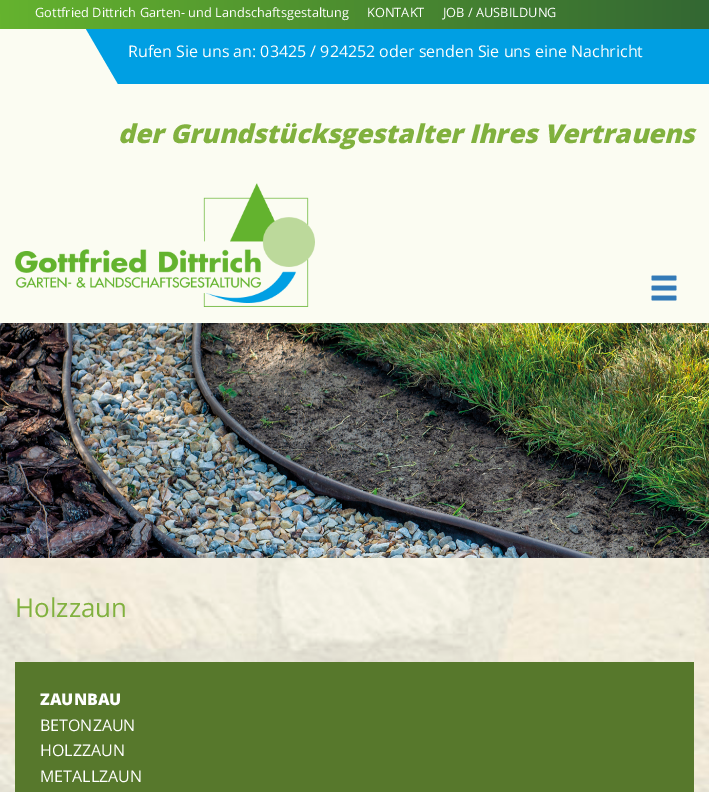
%!PS
<< /PageSize [709 792] >> setpagedevice
/rgb { dup -16 bitshift 255 div exch dup -8 bitshift 255 and 255 div exch 255 and 255 div setrgbcolor } def
/font { [ exch dup neg 0 0 3 -1 roll 0 0 ] selectfont } def
/text { moveto show } def
/picture { 5 dict begin { /h /w /y /x /name } { exch def } forall
  gsave x y translate w h scale
  w h 8 [w 0 0 h 0 0] name (r) file false 3 colorimage grestore end } def
0 792 translate 1 -1 scale
4 setmiterlimit
/s1 { /OpenSans-Regular 12.8 font 16#FFFFFF rgb } def
/s2 { /OpenSans-Regular 16 font 16#FFFFFF rgb } def
/s3 { /OpenSans-ExtraBoldItalic 26 font 16#81B13E rgb } def
/s4 { /OpenSans-Regular 26 font 16#81B13E rgb } def
/s5 { /OpenSans-ExtraBold 16 font 16#FFFFFF rgb } def
16#FBFCF2 rgb
0 0 709 792 rectfill
gsave 0 0 moveto 709 0 lineto 709 29 lineto 0 29 lineto closepath clip newpath
<< /ShadingType 2 /ColorSpace /DeviceRGB /Coords [0 15 709 14] /Extend [true true] /Function << /FunctionType 2 /Domain [0 1] /C0 [0.396 0.702 0.18] /C1 [0.2 0.404 0.2] /N 1 >> >> shfill grestore
s1
(Gottfried Dittrich Garten- und Landschaftsgestaltung) 35 17 text
(KONTAKT) 367 17 text
(JOB / AUSBILDUNG) 443 17 text
16#009FE3 rgb
86 29 moveto 677 29 lineto 709 84 lineto 118 84 lineto closepath fill
677 29 32 55 rectfill
s2
(Rufen Sie uns an: 03425 / 924252 oder senden Sie uns eine Nachricht) 128 57 text
s3
(der Grundstücksgestalter Ihres Vertrauens) 118 143 text
(pic1.raw) 15 183 300 124 picture
(pic2.raw) 651 275 26 26 picture
(pic3.raw) 0 323 709 235 picture
(pic4.raw) 0 558 709 234 picture
s4
(Holzzaun) 15 617 text
16#57782C rgb
15 662 679 130 rectfill
s5
(ZAUNBAU) 40 705 text
s2
(BETONZAUN) 40 731 text
(HOLZZAUN) 40 756 text
(METALLZAUN) 40 782 text
showpage
